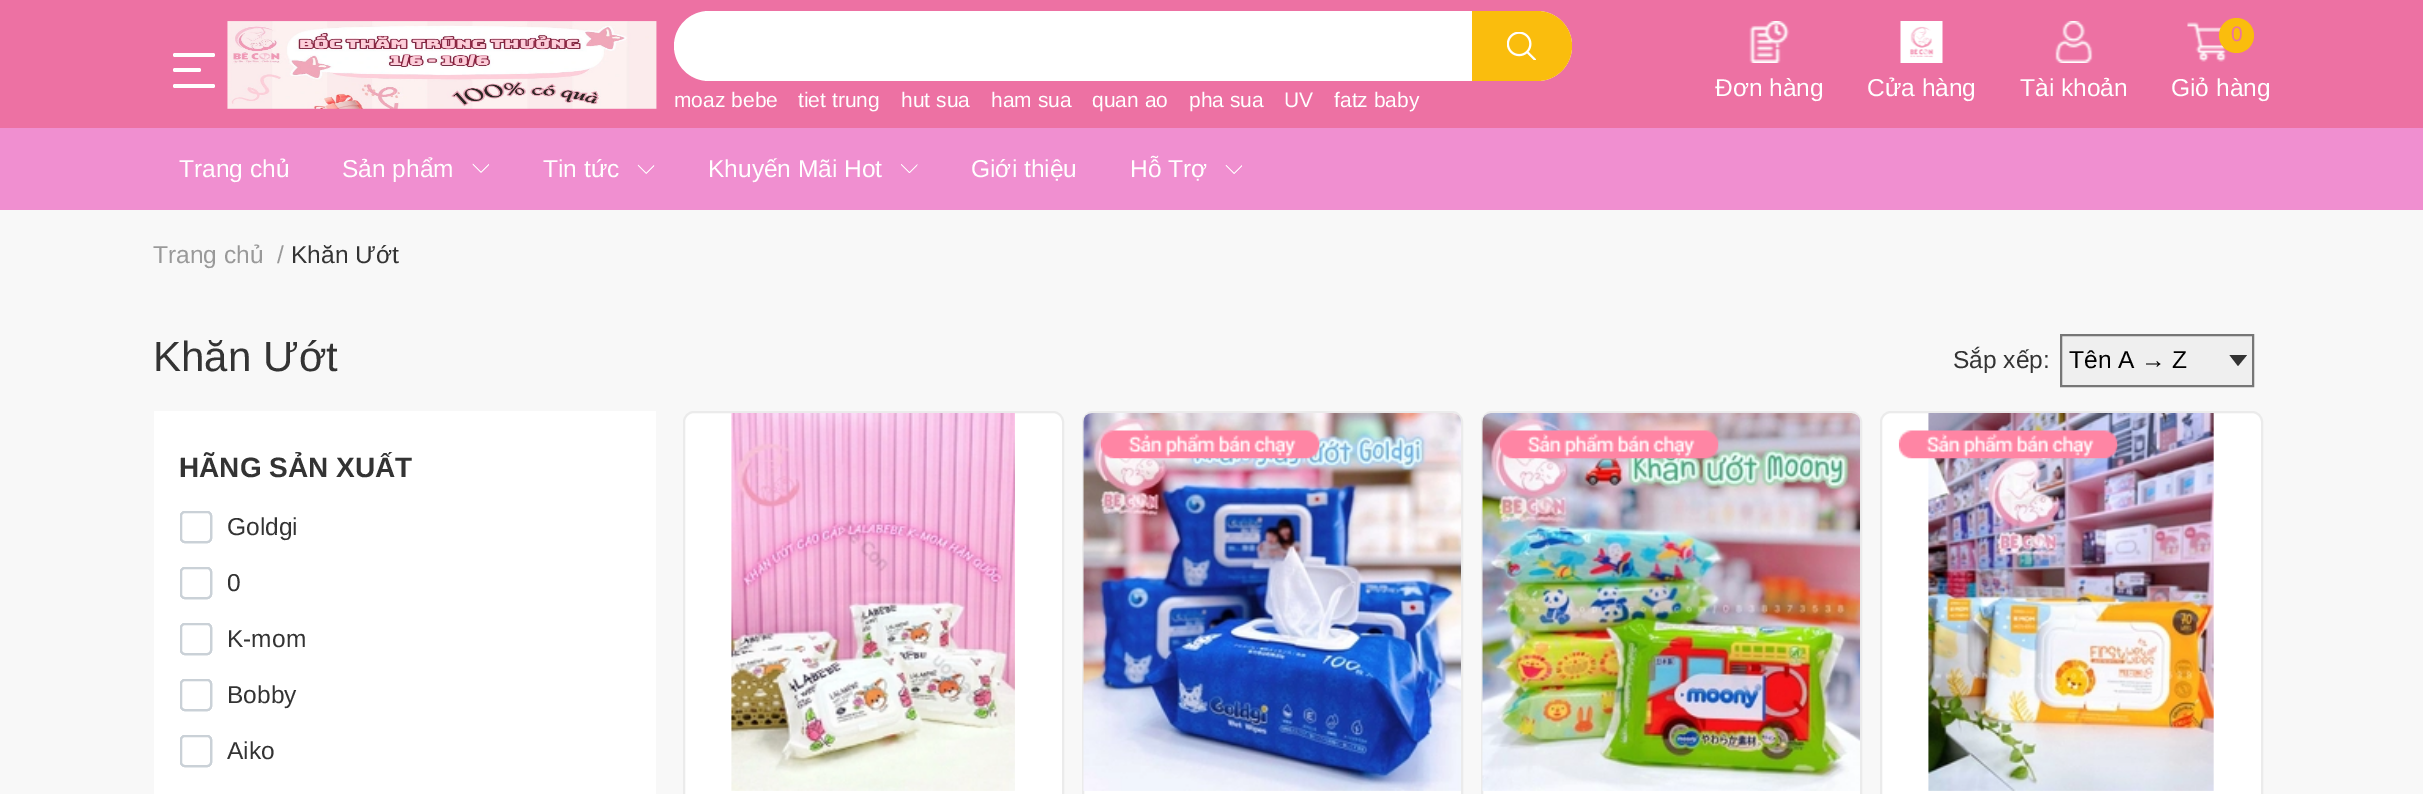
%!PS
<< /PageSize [2423 794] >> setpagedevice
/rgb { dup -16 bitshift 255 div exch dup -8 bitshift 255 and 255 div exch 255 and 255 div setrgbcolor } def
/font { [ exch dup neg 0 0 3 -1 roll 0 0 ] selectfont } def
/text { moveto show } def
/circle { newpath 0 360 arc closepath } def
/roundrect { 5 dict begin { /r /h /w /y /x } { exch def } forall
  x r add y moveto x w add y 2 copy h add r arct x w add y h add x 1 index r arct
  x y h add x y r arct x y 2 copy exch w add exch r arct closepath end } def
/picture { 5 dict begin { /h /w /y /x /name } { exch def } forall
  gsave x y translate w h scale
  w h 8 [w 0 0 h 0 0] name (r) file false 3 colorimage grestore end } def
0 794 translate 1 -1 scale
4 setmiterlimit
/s1 { /LiberationSans-Regular 21 font 16#FFFFFF rgb } def
/s2 { /LiberationSans-Regular 24.5 font 16#FFFFFF rgb } def
/s3 { /LiberationSans-Regular 21 font 16#ED71A3 rgb } def
/s4 { /LiberationSans-Regular 24.5 font 16#999999 rgb } def
/s5 { /LiberationSans-Regular 24.5 font 16#333333 rgb } def
/s6 { /LiberationSans-Regular 42 font 16#333333 rgb } def
/s7 { /LiberationSans-Regular 24.5 font 16#000000 rgb } def
/s8 { /LiberationSans-Bold 28 font 16#333333 rgb } def
16#F8F8F8 rgb
0 0 2423 794 rectfill
16#ED71A3 rgb
0 0 2423 128 rectfill
16#FFFFFF rgb
173 53 42 4 2 roundrect fill
173 68 28 4 2 roundrect fill
173 84 42 4 2 roundrect fill
(pic1.raw) 227 21 430 88 picture
674 11 898 70 35 roundrect fill
16#FABD0D rgb
1472 11 moveto 1537 11 lineto 1556.5 11 1572 26.5 1572 46 curveto 1572 65.5 1556.5 81 1537 81 curveto 1472 81 lineto closepath fill
(pic2.raw) 1507 32 29 28 picture
s1
(moaz bebe) 674 107 text
(tiet trung) 798 107 text
(hut sua) 901 107 text
(ham sua) 991 107 text
(quan ao) 1092 107 text
(pha sua) 1189 107 text
(UV) 1284 107 text
(fatz baby) 1334 107 text
(pic3.raw) 1749 21 41 42 picture
s2
(Đơn hàng) 1715 96 text
(pic4.raw) 1900 21 43 42 picture
(Cửa hàng) 1867 96 text
(pic5.raw) 2055 21 38 42 picture
(Tài khoản) 2020 96 text
(pic6.raw) 2187 22 40 40 picture
16#FABD0D rgb
2236.5 35.5 17.5 circle fill
s3
(0) 2231 41 text
s2
(Giỏ hàng) 2171 96 text
16#F08FD0 rgb
0 128 2423 82 rectfill
s2
(Trang chủ) 179 177 text
(Sản phẩm) 342 177 text
(pic7.raw) 472 163 17 10 picture
(Tin tức) 543 177 text
(pic8.raw) 637 164 18 10 picture
(Khuyến Mãi Hot) 708 177 text
(pic9.raw) 901 164 17 9 picture
(Giới thiệu) 971 177 text
(Hỗ Trợ) 1130 177 text
(pic10.raw) 1225 165 17 9 picture
s4
(Trang chủ) 153 263 text
(/) 277 263 text
s5
(Khăn Ướt) 291 263 text
s6
(Khăn Ướt) 153 371 text
s5
(Sắp xếp:) 1953 368 text
16#EFEFEF rgb
2061 335 moveto 2253 335 lineto 2253 386 lineto 2061 386 lineto closepath gsave fill grestore
16#767676 rgb
2 setlinewidth
stroke
s7
(Tên A → Z) 2069 368 text
16#333333 rgb
2229.5 355 moveto 2247 355 lineto 2238 366 lineto closepath fill
16#FFFFFF rgb
154 411 502 383 rectfill
s8
(HÃNG SẢN XUẤT) 179 477 text
16#CAD1D7 rgb
181 512 30 30 4 roundrect stroke
16#FFFFFF rgb
181 512 30 30 4 roundrect gsave fill grestore
16#CAD1D7 rgb
stroke
s5
(Goldgi) 227 535 text
16#CAD1D7 rgb
181 568 30 30 4 roundrect stroke
16#FFFFFF rgb
181 568 30 30 4 roundrect gsave fill grestore
16#CAD1D7 rgb
stroke
s5
(0) 227 591 text
16#CAD1D7 rgb
181 624 30 30 4 roundrect stroke
16#FFFFFF rgb
181 624 30 30 4 roundrect gsave fill grestore
16#CAD1D7 rgb
stroke
s5
(K-mom) 227 647 text
16#CAD1D7 rgb
181 680 30 30 4 roundrect stroke
16#FFFFFF rgb
181 680 30 30 4 roundrect gsave fill grestore
16#CAD1D7 rgb
stroke
s5
(Bobby) 227 703 text
16#CAD1D7 rgb
181 736 30 30 4 roundrect stroke
16#FFFFFF rgb
181 736 30 30 4 roundrect gsave fill grestore
16#CAD1D7 rgb
stroke
s5
(Aiko) 227 759 text
16#FFFFFF rgb
684 412 379 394 10 roundrect gsave fill grestore
16#EBEBEB rgb
stroke
(pic11.raw) 731 413 284 378 picture
16#FFFFFF rgb
1083 412 379 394 10 roundrect gsave fill grestore
16#EBEBEB rgb
stroke
(pic12.raw) 1083 413 378 378 picture
(pic13.raw) 1100 430 220 29 picture
16#FFFFFF rgb
1482 412 379 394 10 roundrect gsave fill grestore
16#EBEBEB rgb
stroke
(pic14.raw) 1482 413 378 378 picture
(pic15.raw) 1500 430 219 29 picture
16#FFFFFF rgb
1881 412 381 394 10 roundrect gsave fill grestore
16#EBEBEB rgb
stroke
(pic16.raw) 1928 413 286 378 picture
(pic17.raw) 1898 430 220 29 picture
showpage
